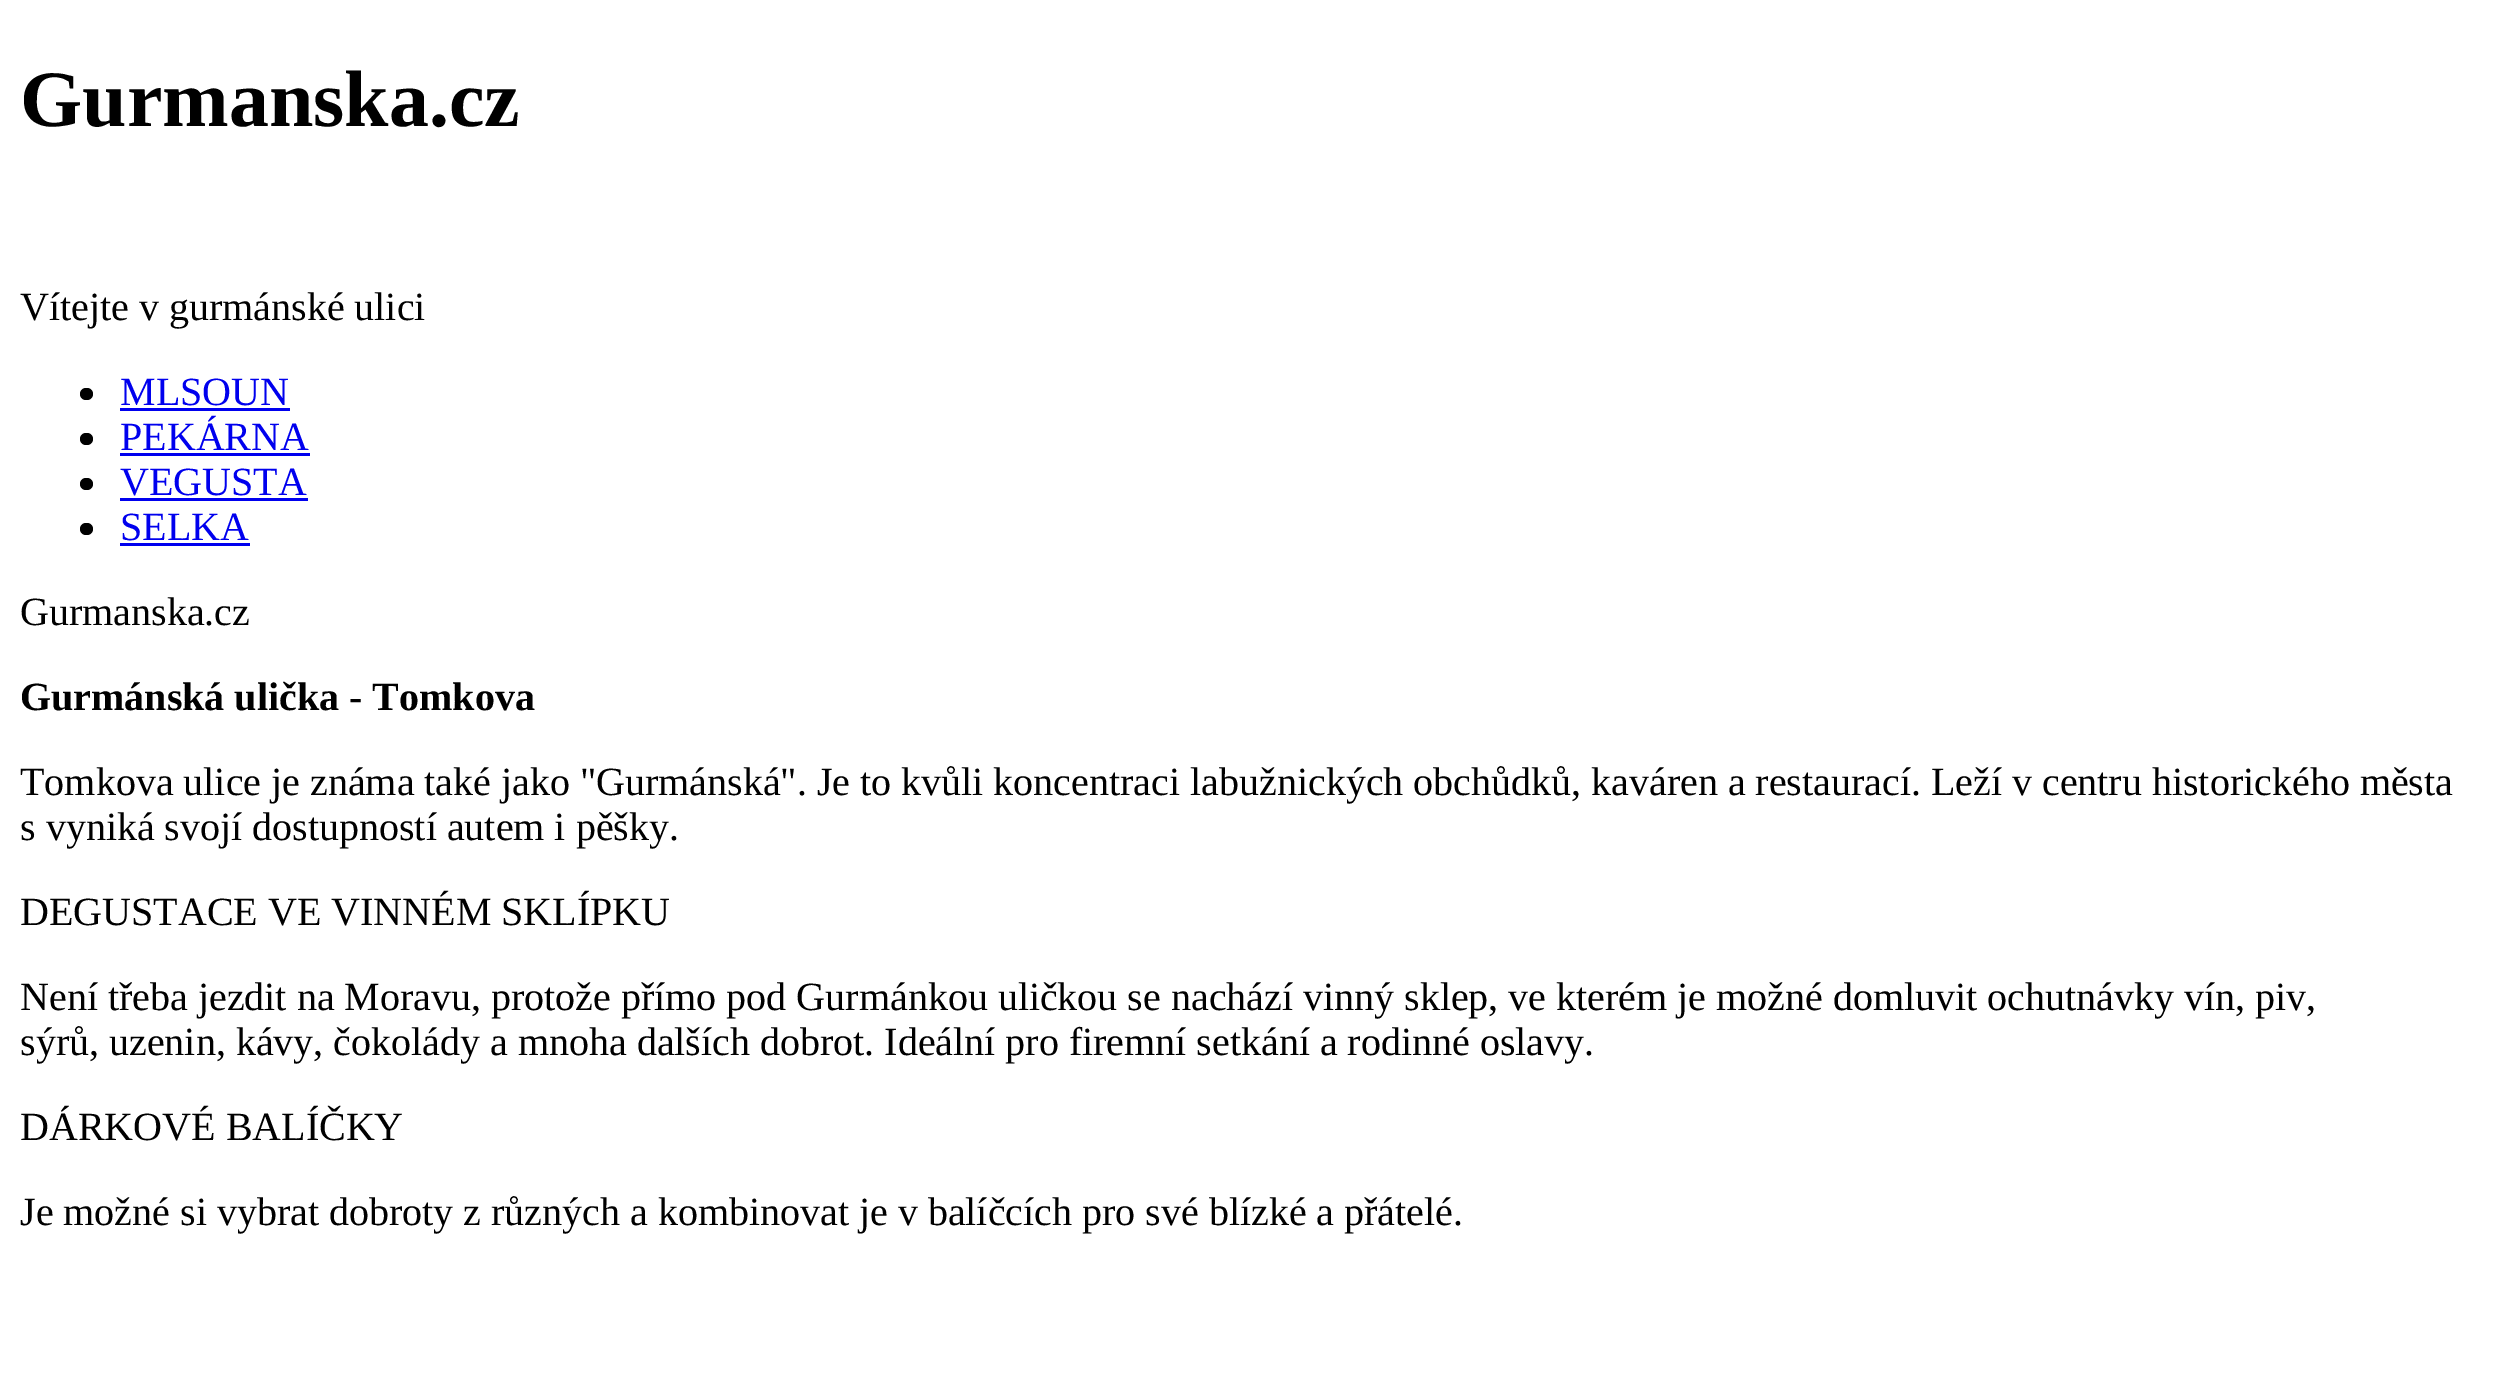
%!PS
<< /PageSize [2519 1395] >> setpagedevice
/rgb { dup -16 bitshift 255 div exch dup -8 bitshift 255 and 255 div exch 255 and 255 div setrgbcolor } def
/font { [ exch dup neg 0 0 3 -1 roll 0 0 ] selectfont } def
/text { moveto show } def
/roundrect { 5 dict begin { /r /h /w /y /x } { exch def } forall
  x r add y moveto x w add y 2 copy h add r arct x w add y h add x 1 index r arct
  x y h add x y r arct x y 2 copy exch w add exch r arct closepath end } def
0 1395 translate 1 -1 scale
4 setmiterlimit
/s1 { /LiberationSerif-Bold 80 font 16#000000 rgb } def
/s2 { /LiberationSerif-Regular 40 font 16#000000 rgb } def
/s3 { /LiberationSerif-Regular 40 font 16#0000EE rgb } def
/s4 { /LiberationSerif-Bold 40 font 16#000000 rgb } def
16#FFFFFF rgb
0 0 2519 1395 rectfill
s1
(Gurmanska.cz) 20 126 text
s2
(Vítejte v gurmánské ulici) 20 320 text
80 388 13 12 6 roundrect fill
s3
(MLSOUN) 120 405 text
120 408 170 3 rectfill
16#000000 rgb
80 433 13 12 6 roundrect fill
s3
(PEKÁRNA) 120 450 text
120 453 190 3 rectfill
16#000000 rgb
80 478 13 12 6 roundrect fill
s3
(VEGUSTA) 120 495 text
120 498 188 3 rectfill
16#000000 rgb
80 523 13 12 6 roundrect fill
s3
(SELKA) 120 540 text
120 543 130 3 rectfill
s2
(Gurmanska.cz) 20 625 text
s4
(Gurmánská ulička - Tomkova) 20 710 text
s2
(Tomkova ulice je známa také jako "Gurmánská". Je to kvůli koncentraci labužnických obchůdků, kaváren a restaurací. Leží v centru historického města) 20 795 text
(s vyniká svojí dostupností autem i pěšky.) 20 840 text
(DEGUSTACE VE VINNÉM SKLÍPKU) 20 925 text
(Není třeba jezdit na Moravu, protože přímo pod Gurmánkou uličkou se nachází vinný sklep, ve kterém je možné domluvit ochutnávky vín, piv,) 20 1010 text
(sýrů, uzenin, kávy, čokolády a mnoha dalších dobrot. Ideální pro firemní setkání a rodinné oslavy.) 20 1055 text
(DÁRKOVÉ BALÍČKY) 20 1140 text
(Je možné si vybrat dobroty z různých a kombinovat je v balíčcích pro své blízké a přátelé.) 20 1225 text
showpage
